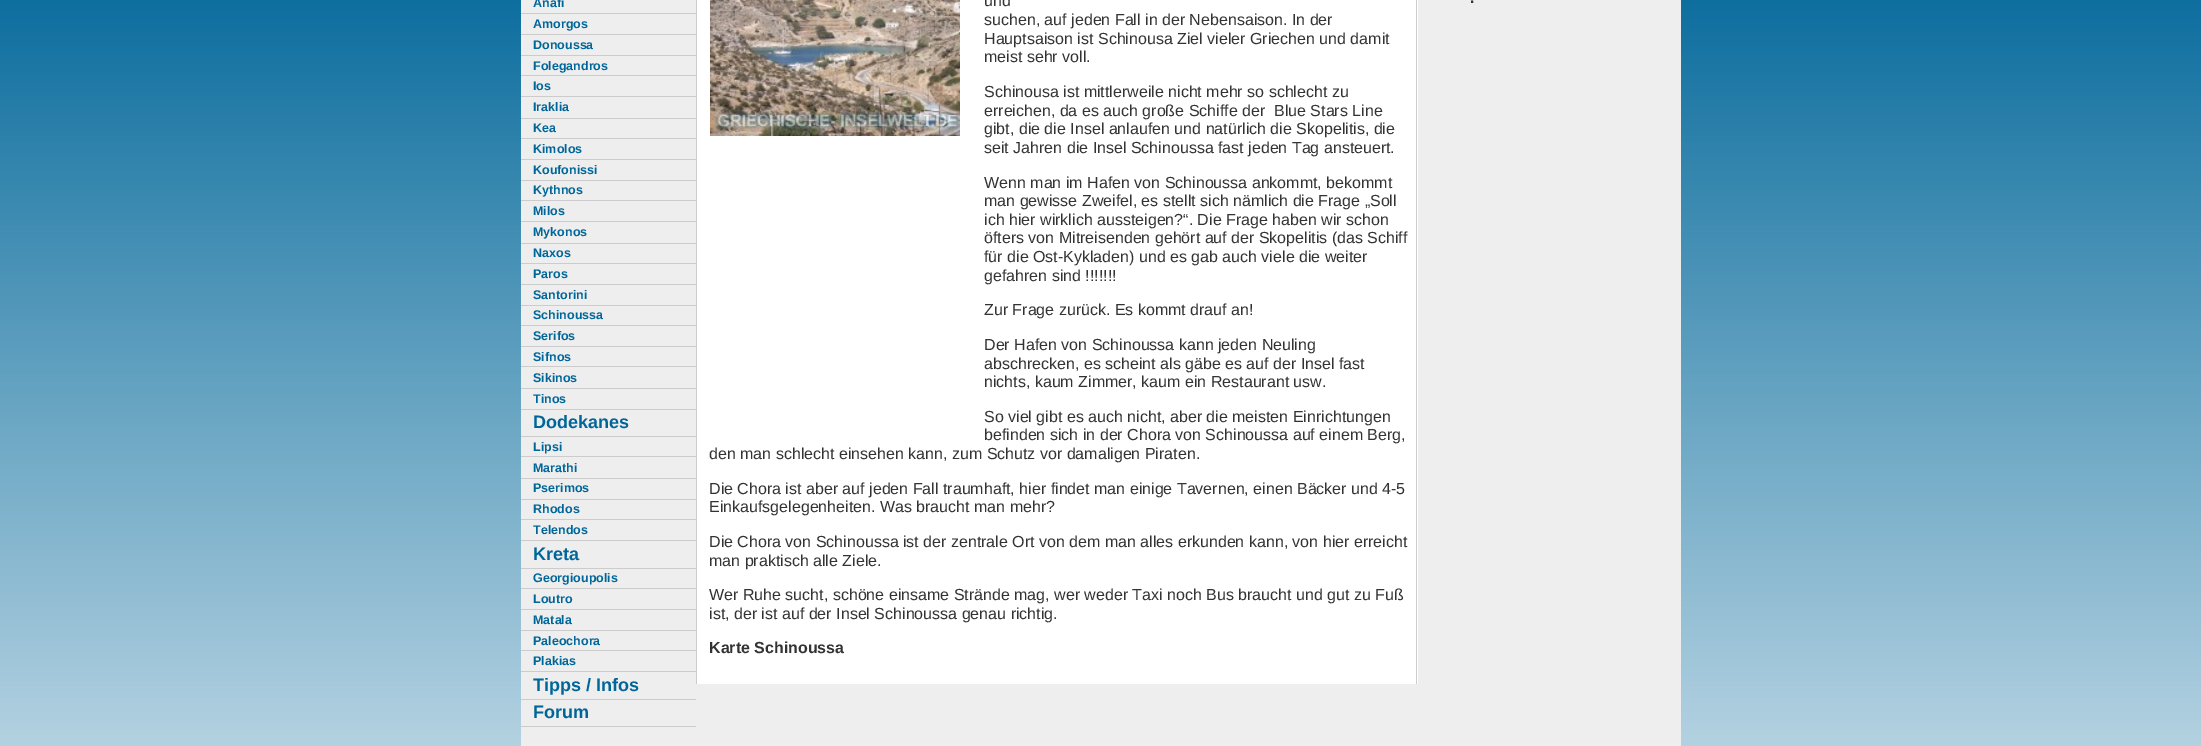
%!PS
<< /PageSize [2201 746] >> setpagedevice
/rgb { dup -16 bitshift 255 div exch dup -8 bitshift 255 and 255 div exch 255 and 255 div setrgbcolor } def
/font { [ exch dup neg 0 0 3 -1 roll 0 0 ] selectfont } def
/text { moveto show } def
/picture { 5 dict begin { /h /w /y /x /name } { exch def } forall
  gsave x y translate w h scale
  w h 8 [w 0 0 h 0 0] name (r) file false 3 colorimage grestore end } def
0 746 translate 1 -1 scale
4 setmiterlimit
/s1 { /LiberationSans-Bold 12.5 font 16#006699 rgb } def
/s2 { /LiberationSans-Bold 18 font 16#006699 rgb } def
/s3 { /LiberationSans-Regular 16 font 16#333333 rgb } def
/s4 { /LiberationSans-Bold 16 font 16#333333 rgb } def
16#FFFFFF rgb
0 0 2201 746 rectfill
(pic1.raw) 0 0 2201 746 picture
16#EEEEEE rgb
521 0 1160 746 rectfill
16#CCCCCC rgb
521 726 175 1 rectfill
s1
(Anafi) 533 7 text
16#CCCCCC rgb
521 13 175 1 rectfill
s1
(Amorgos) 533 28 text
16#CCCCCC rgb
521 34 175 1 rectfill
s1
(Donoussa) 533 49 text
16#CCCCCC rgb
521 55 175 1 rectfill
s1
(Folegandros) 533 70 text
16#CCCCCC rgb
521 75 175 1 rectfill
s1
(Ios) 533 90 text
16#CCCCCC rgb
521 96 175 1 rectfill
s1
(Iraklia) 533 111 text
16#CCCCCC rgb
521 118 175 1 rectfill
s1
(Kea) 533 132 text
16#CCCCCC rgb
521 138 175 1 rectfill
s1
(Kimolos) 533 153 text
16#CCCCCC rgb
521 159 175 1 rectfill
s1
(Koufonissi) 533 174 text
16#CCCCCC rgb
521 180 175 1 rectfill
s1
(Kythnos) 533 194 text
16#CCCCCC rgb
521 200 175 1 rectfill
s1
(Milos) 533 215 text
16#CCCCCC rgb
521 221 175 1 rectfill
s1
(Mykonos) 533 236 text
16#CCCCCC rgb
521 243 175 1 rectfill
s1
(Naxos) 533 257 text
16#CCCCCC rgb
521 263 175 1 rectfill
s1
(Paros) 533 278 text
16#CCCCCC rgb
521 284 175 1 rectfill
s1
(Santorini) 533 299 text
16#CCCCCC rgb
521 305 175 1 rectfill
s1
(Schinoussa) 533 319 text
16#CCCCCC rgb
521 325 175 1 rectfill
s1
(Serifos) 533 340 text
16#CCCCCC rgb
521 346 175 1 rectfill
s1
(Sifnos) 533 361 text
16#CCCCCC rgb
521 366 175 1 rectfill
s1
(Sikinos) 533 382 text
16#CCCCCC rgb
521 388 175 1 rectfill
s1
(Tinos) 533 403 text
16#CCCCCC rgb
521 409 175 1 rectfill
s2
(Dodekanes) 533 428 text
16#CCCCCC rgb
521 436 175 1 rectfill
s1
(Lipsi) 533 451 text
16#CCCCCC rgb
521 456 175 1 rectfill
s1
(Marathi) 533 472 text
16#CCCCCC rgb
521 478 175 1 rectfill
s1
(Pserimos) 533 492 text
16#CCCCCC rgb
521 499 175 1 rectfill
s1
(Rhodos) 533 513 text
16#CCCCCC rgb
521 519 175 1 rectfill
s1
(Telendos) 533 534 text
16#CCCCCC rgb
521 540 175 1 rectfill
s2
(Kreta) 533 560 text
16#CCCCCC rgb
521 568 175 1 rectfill
s1
(Georgioupolis) 533 582 text
16#CCCCCC rgb
521 588 175 1 rectfill
s1
(Loutro) 533 603 text
16#CCCCCC rgb
521 609 175 1 rectfill
s1
(Matala) 533 624 text
16#CCCCCC rgb
521 630 175 1 rectfill
s1
(Paleochora) 533 645 text
16#CCCCCC rgb
521 650 175 1 rectfill
s1
(Plakias) 533 665 text
16#CCCCCC rgb
521 671 175 1 rectfill
s2
(Tipps / Infos) 533 691 text
16#CCCCCC rgb
521 699 175 1 rectfill
s2
(Forum) 533 718 text
16#FFFFFF rgb
697 0 721 684 rectfill
16#CCCCCC rgb
1416 0 1 684 rectfill
696 0 1 684 rectfill
(pic2.raw) 710 0 250 136 picture
s3
(und) 984 6 text
(suchen, auf jeden Fall in der Nebensaison. In der) 984 25 text
(Hauptsaison ist Schinousa Ziel vieler Griechen und damit) 984 44 text
(meist sehr voll.) 984 62 text
(Schinousa ist mittlerweile nicht mehr so schlecht zu) 984 97 text
(erreichen, da es auch große Schiffe der  Blue Stars Line) 984 116 text
(gibt, die die Insel anlaufen und natürlich die Skopelitis, die) 984 134 text
(seit Jahren die Insel Schinoussa fast jeden Tag ansteuert.) 984 153 text
(Wenn man im Hafen von Schinoussa ankommt, bekommt) 984 188 text
(man gewisse Zweifel, es stellt sich nämlich die Frage „Soll) 984 206 text
(ich hier wirklich aussteigen?“. Die Frage haben wir schon) 984 225 text
(öfters von Mitreisenden gehört auf der Skopelitis \(das Schiff) 984 243 text
(für die Ost-Kykladen\) und es gab auch viele die weiter) 984 262 text
(gefahren sind !!!!!!!) 984 281 text
(Zur Frage zurück. Es kommt drauf an!) 984 315 text
(Der Hafen von Schinoussa kann jeden Neuling) 984 350 text
(abschrecken, es scheint als gäbe es auf der Insel fast) 984 369 text
(nichts, kaum Zimmer, kaum ein Restaurant usw.) 984 387 text
(So viel gibt es auch nicht, aber die meisten Einrichtungen) 984 422 text
(befinden sich in der Chora von Schinoussa auf einem Berg,) 984 440 text
(den man schlecht einsehen kann, zum Schutz vor damaligen Piraten.) 709 459 text
(Die Chora ist aber auf jeden Fall traumhaft, hier findet man einige Tavernen, einen Bäcker und 4-5) 709 494 text
(Einkaufsgelegenheiten. Was braucht man mehr?) 709 512 text
(Die Chora von Schinoussa ist der zentrale Ort von dem man alles erkunden kann, von hier erreicht) 709 547 text
(man praktisch alle Ziele.) 709 566 text
(Wer Ruhe sucht, schöne einsame Strände mag, wer weder Taxi noch Bus braucht und gut zu Fuß) 709 600 text
(ist, der ist auf der Insel Schinoussa genau richtig.) 709 619 text
s4
(Karte Schinoussa) 709 653 text
(.) 1470 3 text
showpage
